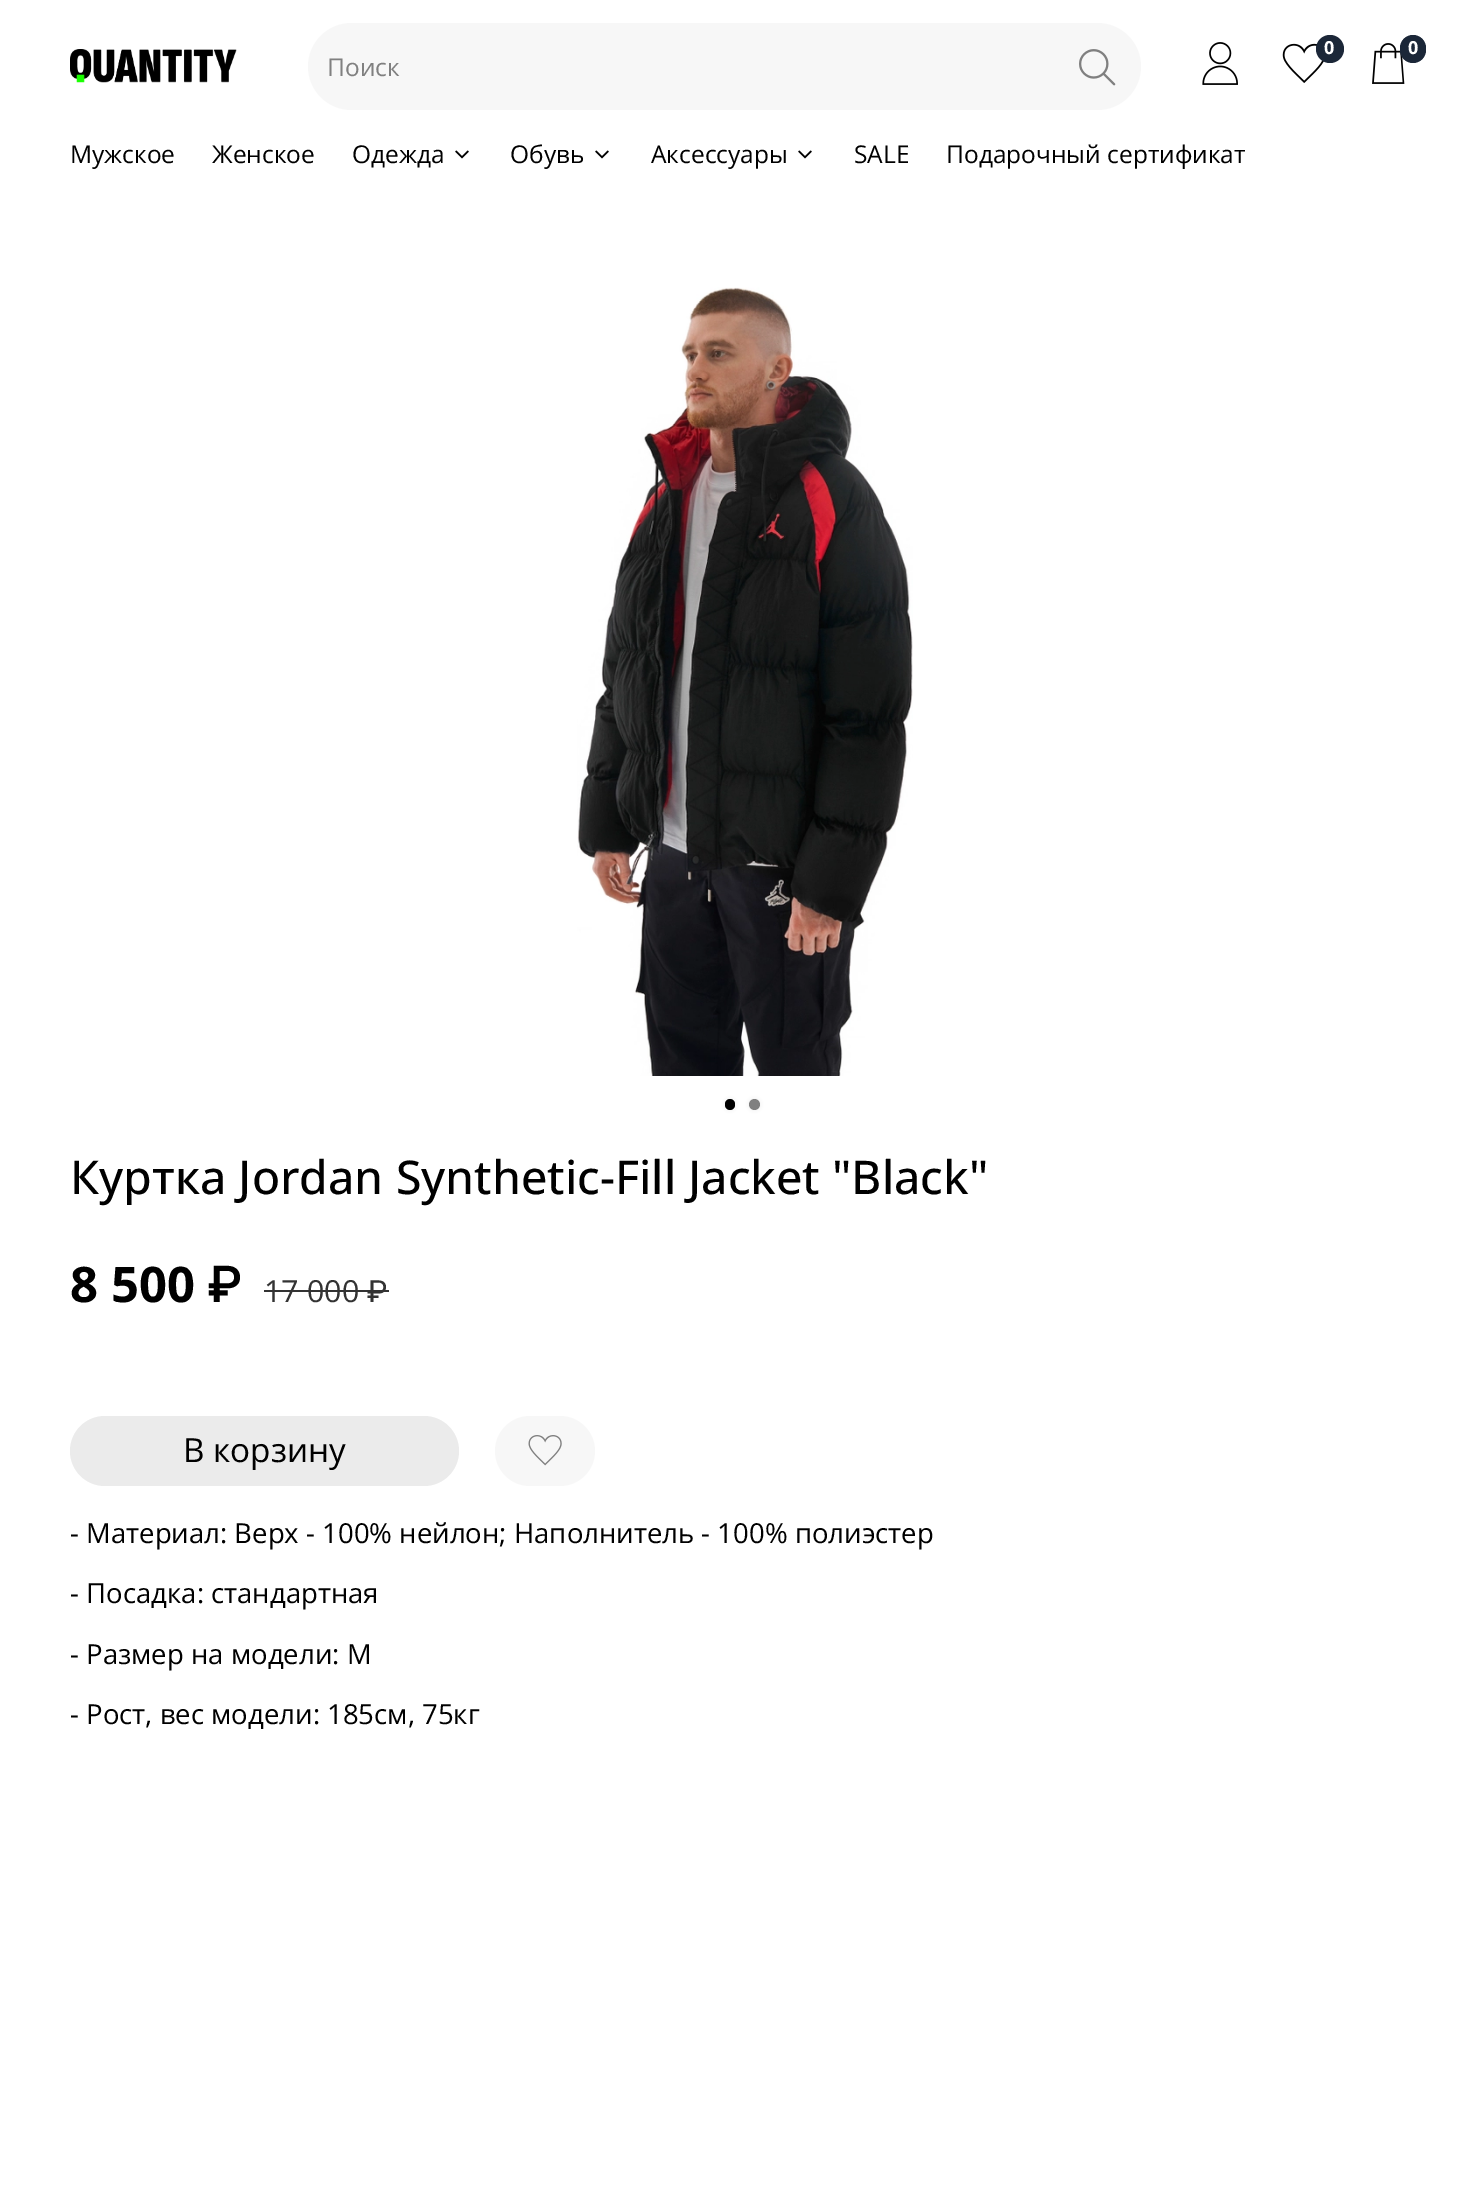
%!PS
<< /PageSize [1481 2201] /PageUsesTransparency true >> setpagedevice
/rgb { dup -16 bitshift 255 div exch dup -8 bitshift 255 and 255 div exch 255 and 255 div setrgbcolor } def
/font { [ exch dup neg 0 0 3 -1 roll 0 0 ] selectfont } def
/text { moveto show } def
/alpha { dup .setfillconstantalpha .setstrokeconstantalpha } def
/circle { newpath 0 360 arc closepath } def
/roundrect { 5 dict begin { /r /h /w /y /x } { exch def } forall
  x r add y moveto x w add y 2 copy h add r arct x w add y h add x 1 index r arct
  x y h add x y r arct x y 2 copy exch w add exch r arct closepath end } def
/shadow { 12 dict begin { /a /b /q /h /w /y /x } { exch def } forall gsave /was 0 def
  9 -2 -9 { dup b mul 4 div /e exch def 1 sub .425 mul 2.718 exch exp 1 add a .99 .min exch div /now exch def
    1 1 now sub 1 was sub div sub alpha /was now def
    w h .min e 2 mul add 0 gt { x e sub y e sub w e 2 mul add h e 2 mul add
      q e add b .6 mul add w h .min 2 div e add .min 0 .max roundrect fill } if } for grestore end } def
/picture { 5 dict begin { /h /w /y /x /name } { exch def } forall
  gsave x y translate w h scale
  w h 8 [w 0 0 h 0 0] name (r) file false 3 colorimage grestore end } def
0 .pushpdf14devicefilter
0 2201 translate 1 -1 scale
4 setmiterlimit
/s1 { /OpenSans-Bold 18 font 16#FFFFFF rgb } def
/s2 { /OpenSans-Regular 24.5 font 16#808080 rgb } def
/s3 { /OpenSans-Regular 24.5 font 16#000000 rgb } def
/s4 { /OpenSans-Medium 46.5 font 16#000000 rgb } def
/s5 { /OpenSans-Bold 49 font 16#000000 rgb } def
/s6 { /Roboto-Bold 49 font 16#000000 rgb } def
/s7 { /OpenSans-Regular 30.5 font 16#333333 rgb } def
/s8 { /Roboto-Regular 30.5 font 16#333333 rgb } def
/s9 { /OpenSans-Regular 33.25 font 16#000000 rgb } def
/s10 { /OpenSans-Regular 27.55 font 16#000000 rgb } def
16#FFFFFF rgb
0 0 1481 2201 rectfill
(pic1.raw) 1202 42 36 43 picture
(pic2.raw) 1282 43 42 40 picture
16#1B2738 rgb
1330 49 14 circle fill
s1
(0) 1324 54 text
(pic3.raw) 1372 43 33 41 picture
16#1B2738 rgb
1400 35 26 28 13 roundrect fill
s1
(0) 1408 54 text
(pic4.raw) 70 49 167 34 picture
16#F7F7F7 rgb
351.5 23 moveto 1054 23 lineto 1054 110 lineto 351.5 110 lineto 327.5 110 308 90.5 308 66.5 curveto 308 42.5 327.5 23 351.5 23 curveto closepath fill
s2
(Поиск) 327 76 text
16#F7F7F7 rgb
1054 23 moveto 1097.5 23 lineto 1121.5 23 1141 42.5 1141 66.5 curveto 1141 90.5 1121.5 110 1097.5 110 curveto 1054 110 lineto closepath fill
(pic5.raw) 1079 49 37 37 picture
s3
(Мужское) 70 163 text
(Женское) 212 163 text
(Одежда) 352 163 text
(pic6.raw) 455 150 14 9 picture
(Обувь) 510 163 text
(pic6.raw) 595 150 14 9 picture
(Аксессуары) 651 163 text
(pic6.raw) 798 150 14 9 picture
(SALE) 854 163 text
(Подарочный сертификат) 946 163 text
(pic7.raw) 577 287 336 789 picture
16#EDEDED rgb
725 1099 10 11 5 2 1 shadow
16#000000 rgb
725 1099 10 11 5 roundrect fill
16#EDEDED rgb
749 1099 11 11 5.5 2 1 shadow
16#808080 rgb
754.5 1104.5 5.5 circle fill
s4
(Куртка Jordan Synthetic-Fill Jacket "Black") 70 1194 text
s5
(8 500) 70 1302 text
s6
(₽) 208 1302 text
s7
(17 000) 264 1302 text
264 1290 125 2 rectfill
s8
(₽) 367 1302 text
16#EBEBEB rgb
70 1416 389 70 35 roundrect fill
s9
(В корзину) 183 1462 text
16#F7F7F7 rgb
495 1416 100 70 35 roundrect fill
(pic8.raw) 528 1435 34 31 picture
s10
(- Материал: Верх - 100% нейлон; Наполнитель - 100% полиэстер) 70 1543 text
(- Посадка: стандартная) 70 1603 text
(- Размер на модели: М) 70 1664 text
(- Рост, вес модели: 185см, 75кг) 70 1724 text
.poppdf14devicefilter showpage
